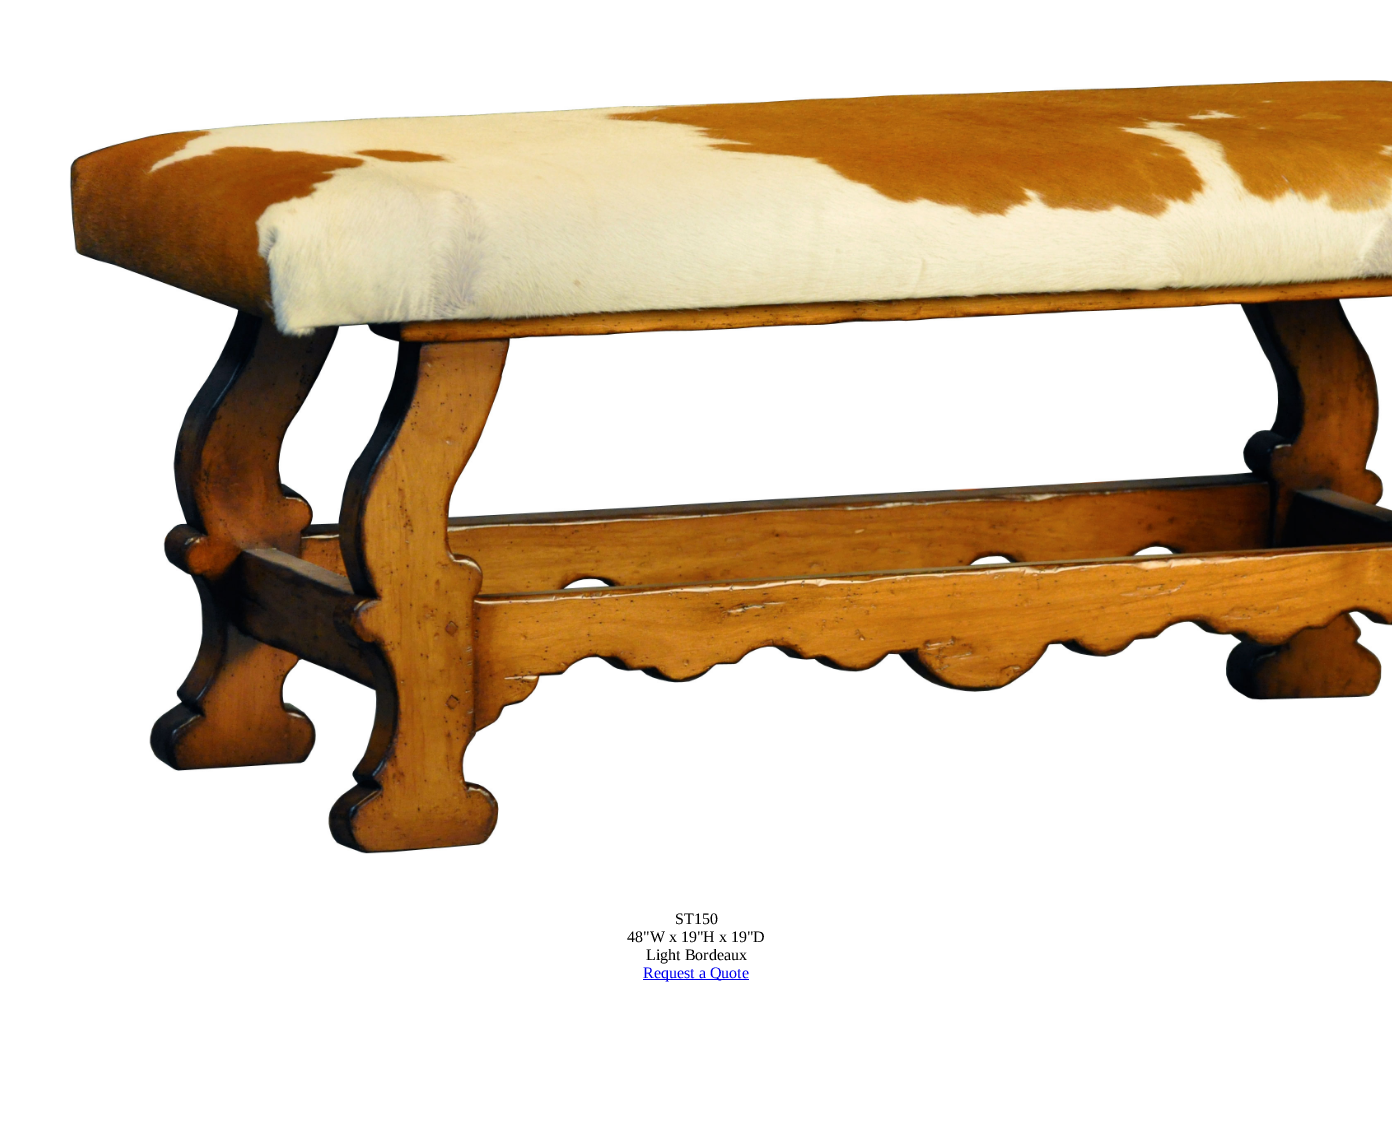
%!PS
<< /PageSize [1392 1144] >> setpagedevice
/rgb { dup -16 bitshift 255 div exch dup -8 bitshift 255 and 255 div exch 255 and 255 div setrgbcolor } def
/font { [ exch dup neg 0 0 3 -1 roll 0 0 ] selectfont } def
/text { moveto show } def
/picture { 5 dict begin { /h /w /y /x /name } { exch def } forall
  gsave x y translate w h scale
  w h 8 [w 0 0 h 0 0] name (r) file false 3 colorimage grestore end } def
0 1144 translate 1 -1 scale
4 setmiterlimit
/s1 { /LiberationSerif-Regular 16 font 16#000000 rgb } def
/s2 { /LiberationSerif-Regular 16 font 16#0000EE rgb } def
16#FFFFFF rgb
0 0 1392 1144 rectfill
(pic1.raw) 69 80 1323 774 picture
s1
(ST150) 675 924 text
(48"W x 19"H x 19"D) 627 942 text
(Light Bordeaux) 646 960 text
16#0000EE rgb
643 979 106 1 rectfill
(Request a Quote) 643 978 text
showpage
